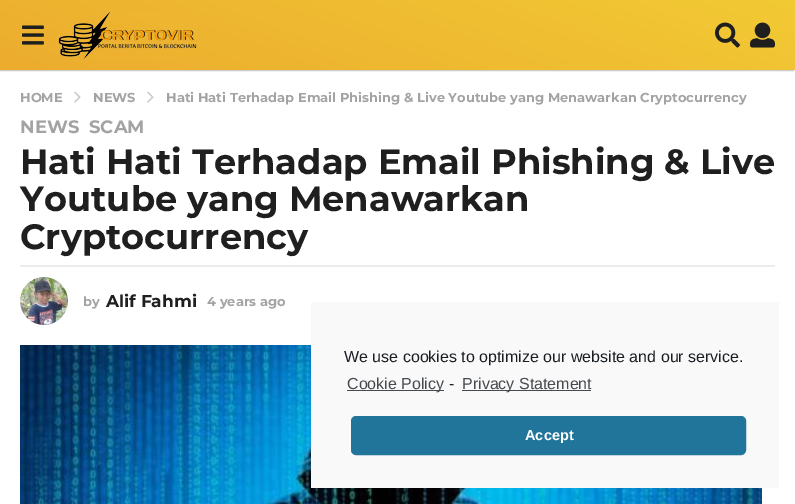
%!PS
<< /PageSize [795 504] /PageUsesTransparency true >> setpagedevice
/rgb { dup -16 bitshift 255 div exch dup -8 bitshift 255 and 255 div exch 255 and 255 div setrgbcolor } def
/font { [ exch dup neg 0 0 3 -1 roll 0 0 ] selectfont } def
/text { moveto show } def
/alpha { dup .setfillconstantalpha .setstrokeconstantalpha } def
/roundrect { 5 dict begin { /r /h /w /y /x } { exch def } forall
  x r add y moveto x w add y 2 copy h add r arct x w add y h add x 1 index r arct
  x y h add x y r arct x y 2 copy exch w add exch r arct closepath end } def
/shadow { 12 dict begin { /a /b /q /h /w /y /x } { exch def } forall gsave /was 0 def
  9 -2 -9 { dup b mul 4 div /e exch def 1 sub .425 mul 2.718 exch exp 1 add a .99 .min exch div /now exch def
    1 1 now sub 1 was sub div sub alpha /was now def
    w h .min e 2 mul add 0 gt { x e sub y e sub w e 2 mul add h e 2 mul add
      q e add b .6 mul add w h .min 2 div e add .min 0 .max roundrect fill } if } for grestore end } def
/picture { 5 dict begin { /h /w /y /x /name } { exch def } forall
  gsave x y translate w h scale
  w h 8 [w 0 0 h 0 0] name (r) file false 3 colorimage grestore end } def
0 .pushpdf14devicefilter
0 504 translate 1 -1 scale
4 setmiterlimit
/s1 { /Montserrat-Bold 13 font 16#A3A3A3 rgb } def
/s2 { /Montserrat-Bold 18 font 16#A3A3A3 rgb } def
/s3 { /Montserrat-Bold 35.2 font 16#1F1F1F rgb } def
/s4 { /Montserrat-Bold 17 font 16#1F1F1F rgb } def
/s5 { /LiberationSans-Regular 16 font 16#191E23 rgb } def
/s6 { /LiberationSans-Regular 16 font 16#464A4E rgb } def
/s7 { /LiberationSans-Bold 14.5 font 16#FFFFFF rgb } def
16#FFFFFF rgb
0 0 795 504 rectfill
16#2A2A2A rgb
-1 1 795 70 0 0.5 0.27 shadow
gsave 0 0 moveto 795 0 lineto 795 70 lineto 0 70 lineto closepath clip newpath
<< /ShadingType 2 /ColorSpace /DeviceRGB /Coords [340 194 455 -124] /Extend [true true] /Function << /FunctionType 2 /Domain [0 1] /C0 [0.925 0.675 0.18] /C1 [0.949 0.792 0.204] /N 1 >> >> shfill grestore
(pic1.raw) 22 25 22 20 picture
(pic2.raw) 58 11 139 49 picture
(pic3.raw) 715 22 25 26 picture
(pic4.raw) 750 22 25 26 picture
s1
(HOME) 20 102 text
(pic5.raw) 74 91 7 12 picture
(NEWS) 93 102 text
(pic5.raw) 147 91 7 12 picture
(Hati Hati Terhadap Email Phishing & Live Youtube yang Menawarkan Cryptocurrency) 166 102 text
s2
(NEWS) 20 133 text
(SCAM) 89 133 text
s3
(Hati Hati Terhadap Email Phishing & Live) 20 174 text
(Youtube yang Menawarkan) 20 211 text
(Cryptocurrency) 20 249 text
16#ECECEC rgb
20 265 755 2 rectfill
(pic6.raw) 20 277 48 48 picture
s1
(by) 83 306 text
s4
(Alif Fahmi) 106 307 text
s1
(4 years ago) 207 306 text
(pic7.raw) 20 345 742 159 picture
16#F9F9F9 rgb
311 302 468 186 rectfill
s5
(We use cookies to optimize our website and our service.) 344 362 text
16#464A4E rgb
347 390 97 1 rectfill
(Cookie Policy) 347 389 text
s5
(-) 449 389 text
16#464A4E rgb
462 390 129 1 rectfill
(Privacy Statement) 462 389 text
16#21759B rgb
352 417 393 37 4 roundrect gsave fill grestore
2 setlinewidth
stroke
s7
(Accept) 525 440 text
.poppdf14devicefilter showpage
